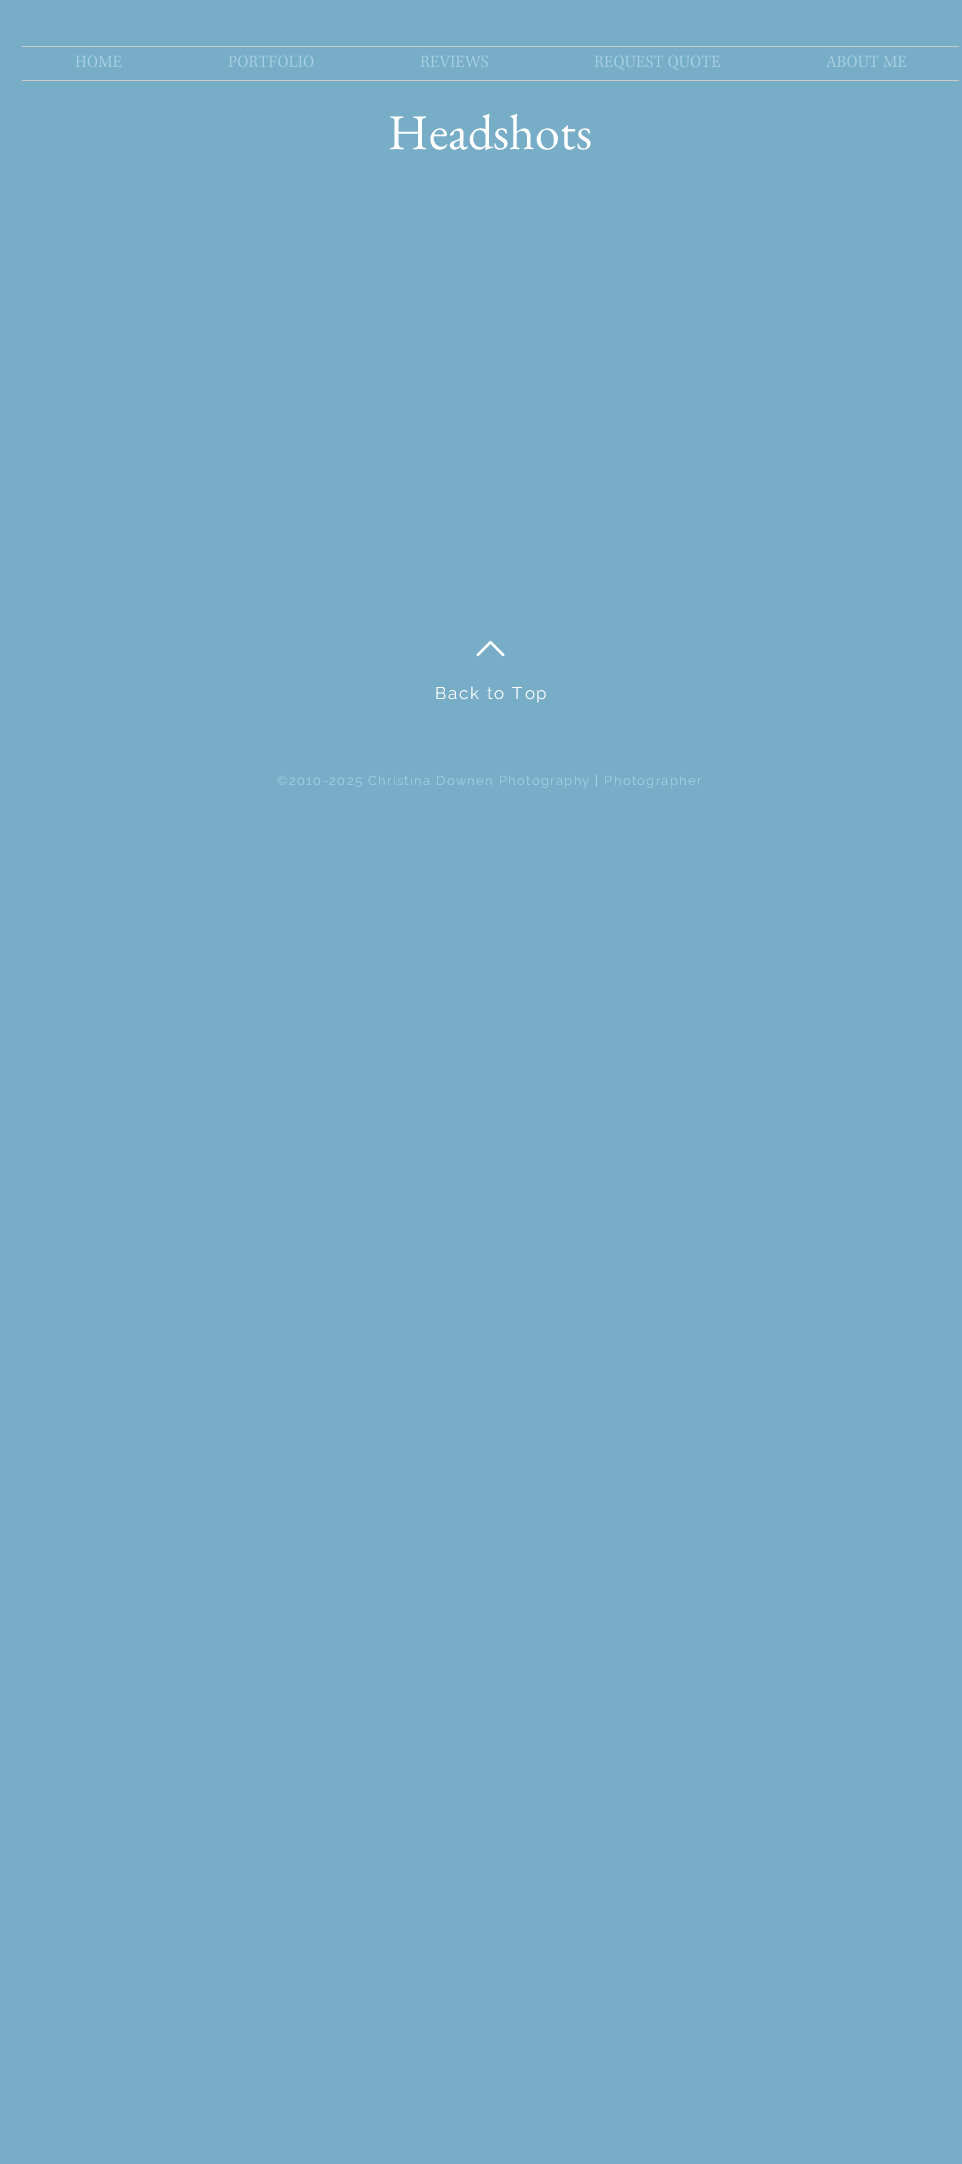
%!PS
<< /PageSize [962 2164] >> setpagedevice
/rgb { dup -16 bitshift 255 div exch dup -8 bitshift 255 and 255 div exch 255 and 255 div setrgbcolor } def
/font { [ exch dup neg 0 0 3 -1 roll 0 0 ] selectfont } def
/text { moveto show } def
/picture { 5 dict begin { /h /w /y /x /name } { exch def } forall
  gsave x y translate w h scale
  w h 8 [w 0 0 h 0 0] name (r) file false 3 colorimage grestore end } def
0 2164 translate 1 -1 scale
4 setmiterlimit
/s1 { /EBGaramond-Regular 50 font 16#FFFFFF rgb } def
16#77ADC7 rgb
0 0 962 2164 rectfill
16#CACACA rgb
22 46 937 1 rectfill
22 80 937 1 rectfill
(pic1.raw) 75 55 47 13 picture
(pic2.raw) 228 55 86 13 picture
(pic3.raw) 420 55 68 13 picture
(pic4.raw) 594 55 127 15 picture
(pic5.raw) 826 55 81 13 picture
s1
(Headshots) 388 149 text
(pic6.raw) 476 640 29 17 picture
/Raleway-Regular 17 font
435 699 moveto 1.75 0 (Back to Top) ashow
/Raleway-Regular 13 font
16#A6D0E3 rgb
277 785 moveto 1.3 0 (©2010-2025 Christina Downen Photography | Photographer) ashow
showpage
